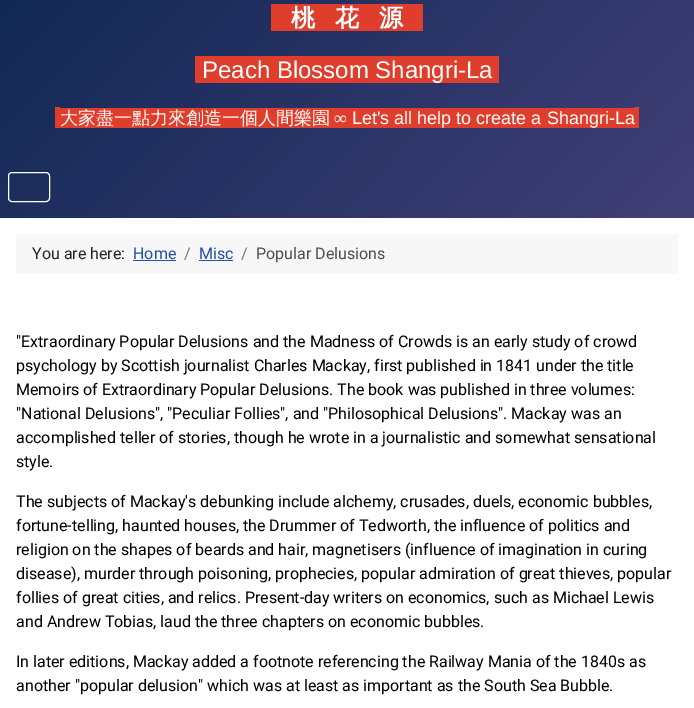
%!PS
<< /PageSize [694 708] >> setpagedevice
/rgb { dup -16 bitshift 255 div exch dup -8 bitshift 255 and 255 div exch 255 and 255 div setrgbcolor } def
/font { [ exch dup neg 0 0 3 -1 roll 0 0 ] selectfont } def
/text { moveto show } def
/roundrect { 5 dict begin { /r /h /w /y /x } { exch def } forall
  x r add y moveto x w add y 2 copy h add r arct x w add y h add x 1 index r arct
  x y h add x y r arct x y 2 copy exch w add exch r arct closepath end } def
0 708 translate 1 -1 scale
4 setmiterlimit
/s1 { /WenQuanYiZenHei-Bold 24 font 16#FFFFFF rgb } def
/s2 { /LiberationSans-Regular 24 font 16#FFFFFF rgb } def
/s3 { /WenQuanYiZenHei-Medium 18 font 16#FFFFFF rgb } def
/s4 { /LiberationSerif-Regular 18 font 16#FFFFFF rgb } def
/s5 { /LiberationSans-Regular 18 font 16#FFFFFF rgb } def
/s6 { /Roboto-Regular 16 font 16#22262A rgb } def
/s7 { /Roboto-Regular 16 font 16#224FAA rgb } def
/s8 { /Roboto-Regular 16 font 16#6D757E rgb } def
/s9 { /Roboto-Regular 16 font 16#484F56 rgb } def
/s10 { /Roboto-Regular 16 font 16#000000 rgb } def
16#FFFFFF rgb
0 0 694 708 rectfill
gsave 0 0 moveto 694 0 lineto 694 218 lineto 0 218 lineto closepath clip newpath
<< /ShadingType 2 /ColorSpace /DeviceRGB /Coords [119 -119 575 337] /Extend [true true] /Function << /FunctionType 2 /Domain [0 1] /C0 [0.067 0.157 0.333] /C1 [0.259 0.251 0.467] /N 1 >> >> shfill grestore
16#E03E2D rgb
271 4 152 27 rectfill
s1
(桃) 291 26 text
(花) 335 26 text
(源) 379 26 text
16#E03E2D rgb
195 56 304 27 rectfill
s2
(Peach Blossom Shangri-La) 202 78 text
16#E03E2D rgb
60 108 574 20 rectfill
s3
(大家盡一點力來創造一個人間樂園) 60 124 text
16#E03E2D rgb
55 107 5 21 rectfill
s4
(∞) 334 124 text
16#E03E2D rgb
634 107 5 21 rectfill
s5
(Let's all help to create a Shangri-La) 352 124 text
8.5 172.5 41 29 3.5 roundrect stroke
16#F7F7F7 rgb
16 234 662 40 rectfill
s6
(You are here:) 32 259 text
s7
(Home) 133 259 text
133 260 43 1 rectfill
s8
(/) 184 259 text
s7
(Misc) 199 259 text
199 260 34 1 rectfill
s8
(/) 241 259 text
s9
(Popular Delusions) 256 259 text
s10
("Extraordinary Popular Delusions and the Madness of Crowds is an early study of crowd) 16 347 text
(psychology by Scottish journalist Charles Mackay, first published in 1841 under the title) 16 371 text
(Memoirs of Extraordinary Popular Delusions. The book was published in three volumes:) 16 395 text
("National Delusions", "Peculiar Follies", and "Philosophical Delusions". Mackay was an) 16 419 text
(accomplished teller of stories, though he wrote in a journalistic and somewhat sensational) 16 443 text
(style.) 16 467 text
(The subjects of Mackay's debunking include alchemy, crusades, duels, economic bubbles,) 16 507 text
(fortune-telling, haunted houses, the Drummer of Tedworth, the influence of politics and) 16 531 text
(religion on the shapes of beards and hair, magnetisers \(influence of imagination in curing) 16 555 text
(disease\), murder through poisoning, prophecies, popular admiration of great thieves, popular) 16 579 text
(follies of great cities, and relics. Present-day writers on economics, such as Michael Lewis) 16 603 text
(and Andrew Tobias, laud the three chapters on economic bubbles.) 16 627 text
(In later editions, Mackay added a footnote referencing the Railway Mania of the 1840s as) 16 667 text
(another "popular delusion" which was at least as important as the South Sea Bubble.) 16 691 text
showpage
